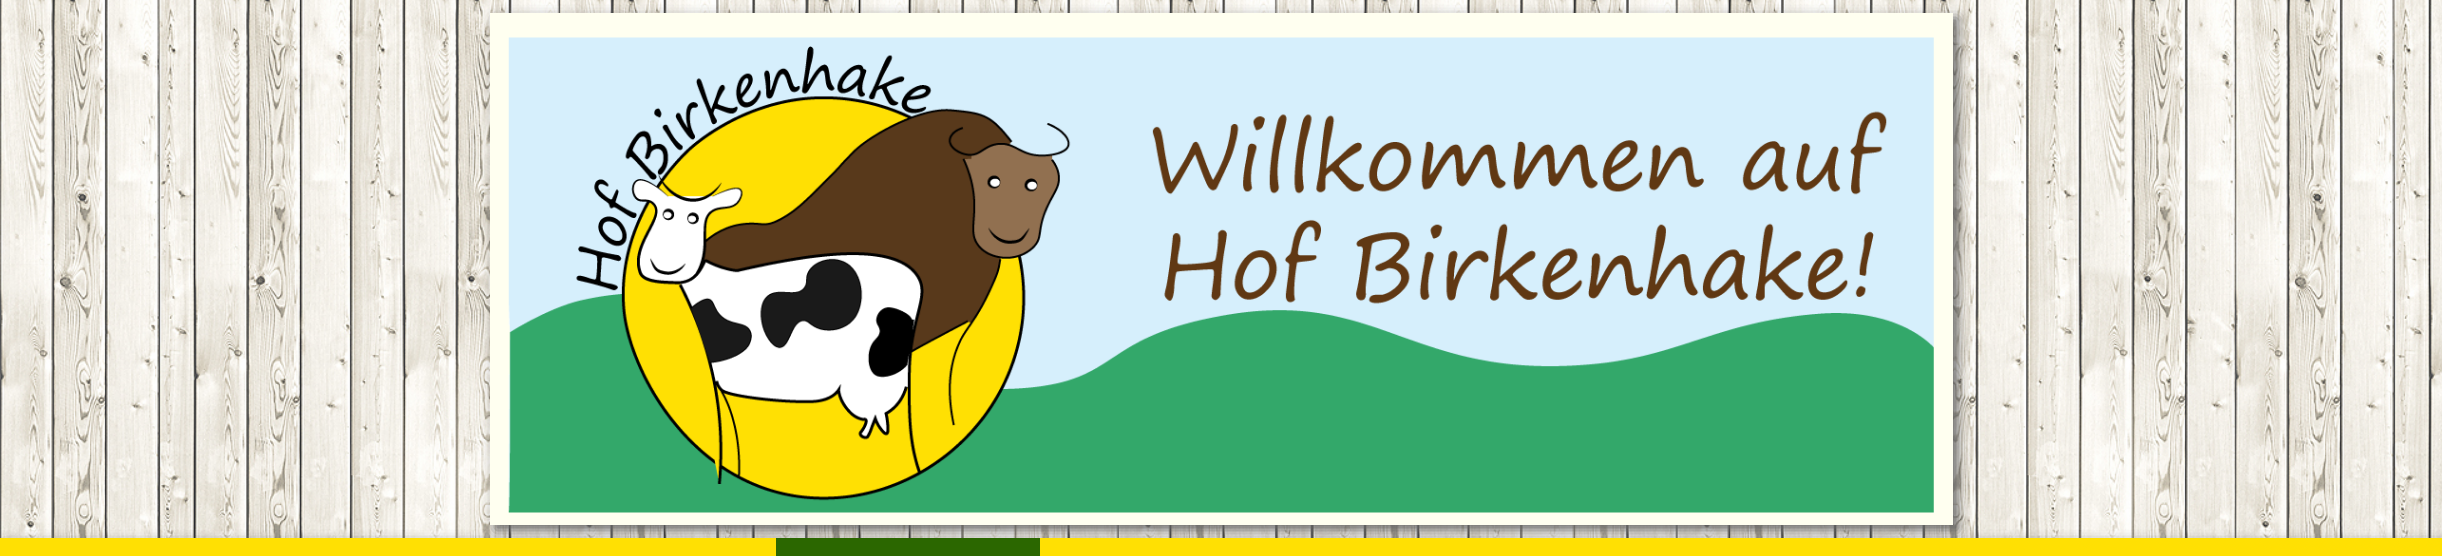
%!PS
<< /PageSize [2442 556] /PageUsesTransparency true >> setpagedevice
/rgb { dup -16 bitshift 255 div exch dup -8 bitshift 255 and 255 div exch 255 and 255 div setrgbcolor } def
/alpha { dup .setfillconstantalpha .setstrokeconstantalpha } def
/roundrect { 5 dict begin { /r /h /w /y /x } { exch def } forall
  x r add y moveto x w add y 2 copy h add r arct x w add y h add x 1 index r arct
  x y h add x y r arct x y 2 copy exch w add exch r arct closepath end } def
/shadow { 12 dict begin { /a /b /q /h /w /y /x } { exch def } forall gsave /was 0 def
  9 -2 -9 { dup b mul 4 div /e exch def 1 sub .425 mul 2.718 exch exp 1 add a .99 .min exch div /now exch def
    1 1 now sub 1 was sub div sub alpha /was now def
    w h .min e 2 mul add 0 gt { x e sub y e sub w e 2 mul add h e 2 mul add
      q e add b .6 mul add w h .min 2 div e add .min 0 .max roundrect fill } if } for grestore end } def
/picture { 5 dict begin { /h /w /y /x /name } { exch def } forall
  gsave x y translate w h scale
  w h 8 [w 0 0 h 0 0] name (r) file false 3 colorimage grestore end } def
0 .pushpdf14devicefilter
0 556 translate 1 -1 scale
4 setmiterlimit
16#FFFFFF rgb
0 0 2442 556 rectfill
(pic1.raw) 0 0 2442 538 picture
16#666666 rgb
495 18 1463 512 0 6 1 shadow
16#FFFFF0 rgb
490 13 1463 512 rectfill
(pic2.raw) 508 37 1426 476 picture
16#666666 rgb
5 543 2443 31 0 6 1 shadow
16#FFE003 rgb
0 538 2442 18 rectfill
16#2B6700 rgb
776 538 264 18 rectfill
.poppdf14devicefilter showpage
